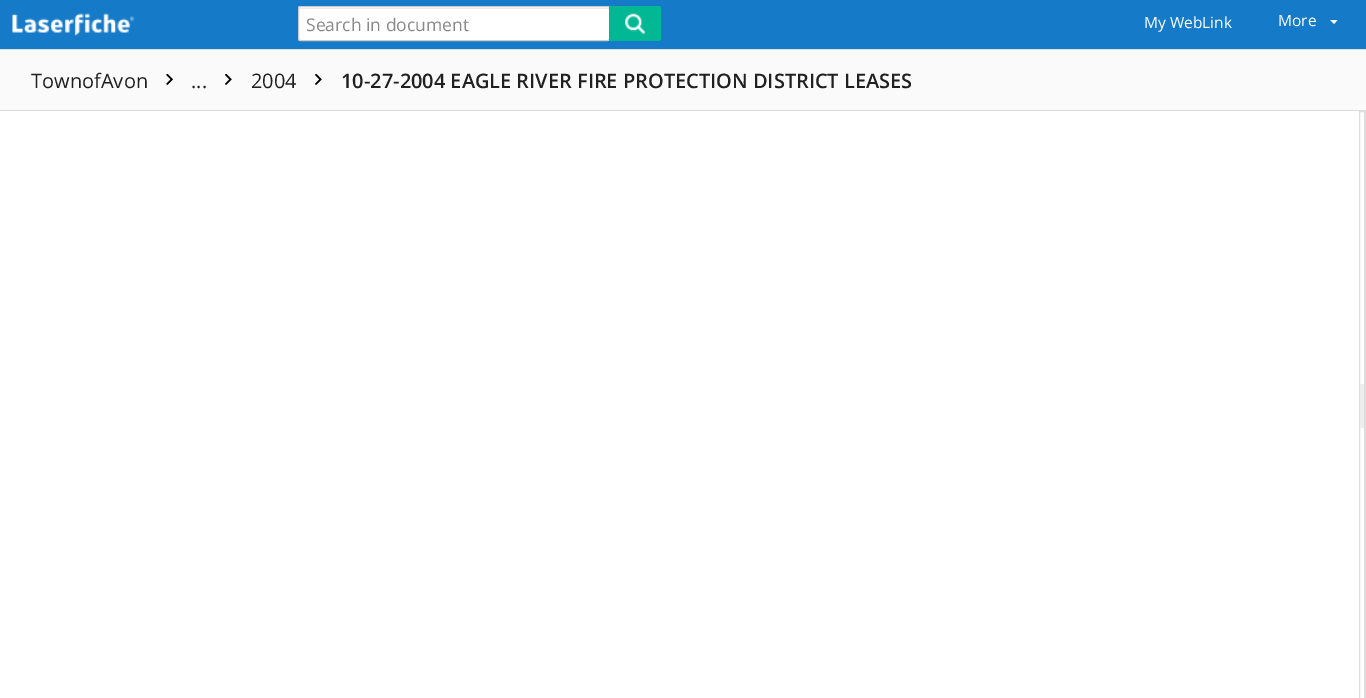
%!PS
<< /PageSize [1366 698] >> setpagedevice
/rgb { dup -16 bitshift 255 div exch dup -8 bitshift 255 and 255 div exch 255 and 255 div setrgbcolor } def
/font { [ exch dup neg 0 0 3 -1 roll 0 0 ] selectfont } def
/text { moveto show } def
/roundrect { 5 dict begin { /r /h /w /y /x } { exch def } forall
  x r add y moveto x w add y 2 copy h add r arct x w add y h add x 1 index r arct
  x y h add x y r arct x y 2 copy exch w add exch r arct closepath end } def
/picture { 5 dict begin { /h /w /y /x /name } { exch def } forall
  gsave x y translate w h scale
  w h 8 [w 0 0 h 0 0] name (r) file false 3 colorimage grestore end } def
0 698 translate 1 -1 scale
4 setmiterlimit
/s1 { /OpenSans-Regular 17.5 font 16#898989 rgb } def
/s2 { /OpenSans-Regular 15.5 font 16#FFFFFF rgb } def
/s3 { /OpenSans-Regular 20 font 16#202020 rgb } def
/s4 { /OpenSans-SemiBold 20 font 16#202020 rgb } def
16#FFFFFF rgb
0 0 1366 698 rectfill
16#157AC7 rgb
0 0 1366 49 rectfill
16#DDDDDD rgb
0 49 1366 1 rectfill
(pic1.raw) 12 13 123 23 picture
16#FFFFFF rgb
298 6 312 35 2.5 roundrect fill
16#ECECEC rgb
300 9 moveto 608 9 lineto 609 10 lineto 609 9 609 8 608 8 curveto 300 8 lineto 299 8 lineto 299 10 lineto 299 9 299 9 300 9 curveto closepath fill
16#CCCCCC rgb
298.5 6.5 311 34 2 roundrect stroke
s1
(Search in document) 306 31 text
16#02B793 rgb
609 6 moveto 658.5 6 lineto 660 6 661 7 661 8.5 curveto 661 38.5 lineto 661 40 660 41 658.5 41 curveto 609 41 lineto closepath fill
(pic2.raw) 625 13 20 21 picture
s2
(My WebLink) 1144 28 text
(More) 1278 26 text
1330 20 moveto 1337.5 20 lineto 1334 24 lineto closepath fill
16#FAFAFA rgb
0 50 1366 60 rectfill
16#DDDDDD rgb
0 110 1366 1 rectfill
s3
(TownofAvon) 31 88 text
(pic3.raw) 166 74 7 11 picture
(pic4.raw) 225 74 7 11 picture
(...) 191 88 text
(2004) 251 88 text
(pic4.raw) 315 74 7 11 picture
s4
(10-27-2004 EAGLE RIVER FIRE PROTECTION DISTRICT LEASES) 341 88 text
16#DDDDDD rgb
1359.5 111.5 5 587 rectstroke
16#EEEEEE rgb
1360 384 4 44 rectfill
16#DDDDDD rgb
1365 111 1 587 rectfill
showpage
